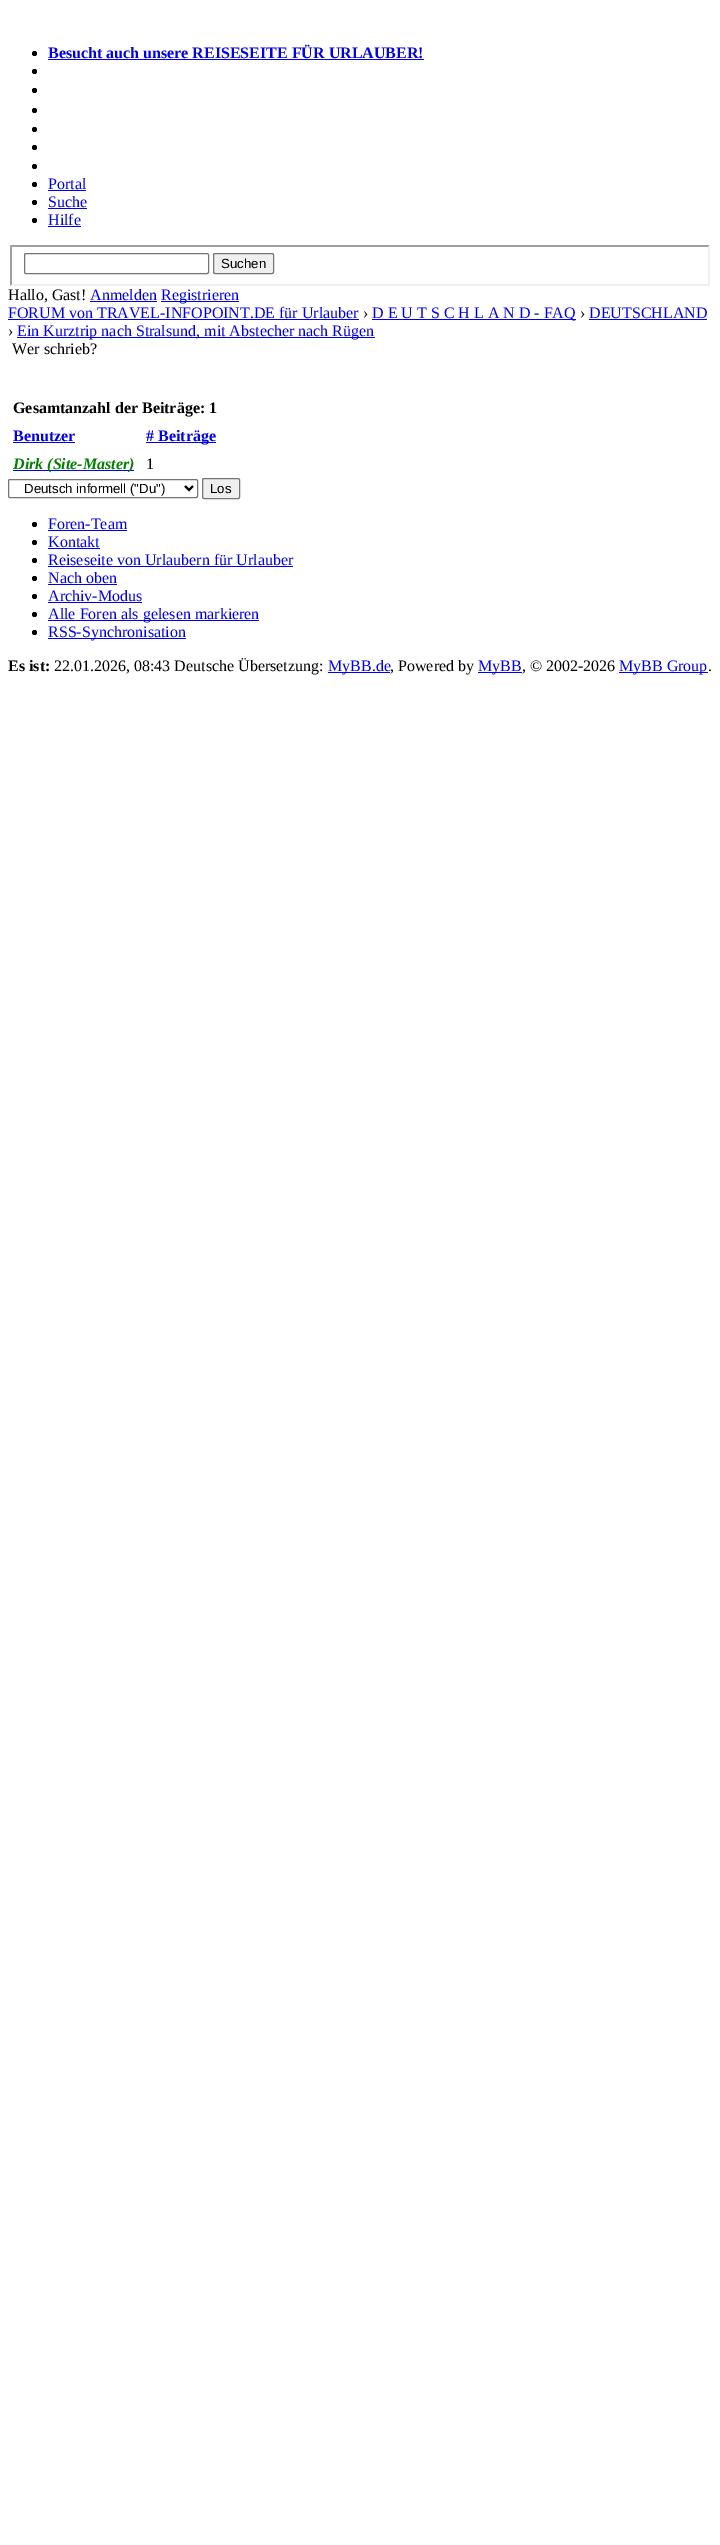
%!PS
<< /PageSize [720 2545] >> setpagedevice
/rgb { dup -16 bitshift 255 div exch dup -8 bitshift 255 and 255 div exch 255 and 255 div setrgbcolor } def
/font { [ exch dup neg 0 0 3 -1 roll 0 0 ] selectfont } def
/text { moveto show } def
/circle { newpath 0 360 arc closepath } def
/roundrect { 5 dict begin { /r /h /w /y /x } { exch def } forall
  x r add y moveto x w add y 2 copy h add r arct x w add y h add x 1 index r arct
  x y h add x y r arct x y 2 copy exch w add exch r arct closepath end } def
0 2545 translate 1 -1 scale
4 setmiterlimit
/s1 { /LiberationSerif-Bold 16 font 16#0000EE rgb } def
/s2 { /LiberationSerif-Regular 16 font 16#0000EE rgb } def
/s3 { /LiberationSans-Regular 13.25 font 16#000000 rgb } def
/s4 { /LiberationSerif-Regular 16 font 16#000000 rgb } def
/s5 { /LiberationSerif-Bold 16 font 16#000000 rgb } def
/s6 { /LiberationSerif-BoldItalic 16 font 16#008000 rgb } def
16#FFFFFF rgb
0 0 720 2545 rectfill
16#000000 rgb
34.5 53.5 2.5 circle fill
s1
(Besucht auch unsere REISESEITE FÜR URLAUBER!) 48 58 text
48 59 376 1 rectfill
16#000000 rgb
34.5 71.5 2.5 circle fill
34.5 90.5 2.5 circle fill
34.5 110.5 2.5 circle fill
34.5 129.5 2.5 circle fill
34.5 147.5 2.5 circle fill
34.5 166.5 2.5 circle fill
34.5 184.5 2.5 circle fill
s2
(Portal) 48 189 text
48 190 38 1 rectfill
16#000000 rgb
34.5 202.5 2.5 circle fill
s2
(Suche) 48 207 text
48 208 39 1 rectfill
16#000000 rgb
34.5 220.5 2.5 circle fill
s2
(Hilfe) 48 225 text
48 226 33 1 rectfill
16#9F9F9F rgb
10 245 moveto 710 245 lineto 708 247 lineto 12 247 lineto closepath fill
16#EFEFEF rgb
710 245 moveto 710 286 lineto 708 284 lineto 708 247 lineto closepath fill
710 286 moveto 10 286 lineto 12 284 lineto 708 284 lineto closepath fill
16#9F9F9F rgb
10 286 moveto 10 245 lineto 12 247 lineto 12 284 lineto closepath fill
16#767676 rgb
24.5 253.5 184 20 1.5 roundrect stroke
16#EFEFEF rgb
213.5 253.5 60 20 1.5 roundrect gsave fill grestore
16#767676 rgb
stroke
s3
(Suchen) 221 268 text
s4
(Hallo, Gast!) 8 300 text
s2
(Anmelden) 90 300 text
90 301 67 1 rectfill
161 301 78 1 rectfill
(Registrieren) 161 300 text
(FORUM von TRAVEL-INFOPOINT.DE für Urlauber) 8 318 text
8 319 351 1 rectfill
s4
(›) 363 318 text
16#0000EE rgb
372 319 204 1 rectfill
(D E U T S C H L A N D - FAQ) 372 318 text
s4
(›) 580 318 text
s2
(DEUTSCHLAND) 589 318 text
589 319 118 1 rectfill
s4
(›) 8 336 text
16#0000EE rgb
17 337 358 1 rectfill
(Ein Kurztrip nach Stralsund, mit Abstecher nach Rügen) 17 336 text
s4
(Wer schrieb?) 12 354 text
s5
(Gesamtanzahl der Beiträge: 1) 13 413 text
s1
(Benutzer) 13 441 text
13 442 62 1 rectfill
146 442 70 1 rectfill
(# Beiträge) 146 441 text
13 470 121 1 rectfill
s6
(Dirk \(Site-Master\)) 13 469 text
s4
(1) 146 469 text
16#767676 rgb
8.5 479.5 189 18 1.5 roundrect stroke
16#000000 rgb
2 setlinewidth
185 486 moveto 189 490 lineto 193 486 lineto stroke
s3
(Deutsch informell \("Du"\)) 24 493 text
16#EFEFEF rgb
202.5 478.5 37 20 1.5 roundrect gsave fill grestore
16#767676 rgb
1 setlinewidth
stroke
s3
(Los) 210 493 text
34.5 524.5 2.5 circle fill
s2
(Foren-Team) 48 529 text
48 530 79 1 rectfill
16#000000 rgb
34.5 542.5 2.5 circle fill
s2
(Kontakt) 48 547 text
48 548 52 1 rectfill
16#000000 rgb
34.5 560.5 2.5 circle fill
s2
(Reiseseite von Urlaubern für Urlauber) 48 565 text
48 566 245 1 rectfill
16#000000 rgb
34.5 578.5 2.5 circle fill
s2
(Nach oben) 48 583 text
48 584 69 1 rectfill
16#000000 rgb
34.5 596.5 2.5 circle fill
s2
(Archiv-Modus) 48 601 text
48 602 94 1 rectfill
16#000000 rgb
34.5 614.5 2.5 circle fill
16#0000EE rgb
48 620 211 1 rectfill
(Alle Foren als gelesen markieren) 48 619 text
16#000000 rgb
34.5 632.5 2.5 circle fill
16#0000EE rgb
48 638 138 1 rectfill
(RSS-Synchronisation) 48 637 text
s5
(Es ist:) 8 671 text
s4
(22.01.2026, 08:43 Deutsche Übersetzung:) 54 671 text
16#0000EE rgb
328 672 62 1 rectfill
(MyBB.de) 328 671 text
s4
(, Powered by) 390 671 text
16#0000EE rgb
478 672 44 1 rectfill
(MyBB) 478 671 text
s4
(, © 2002-2026) 522 671 text
16#0000EE rgb
619 672 89 1 rectfill
(MyBB Group) 619 671 text
s4
(.) 708 671 text
showpage
